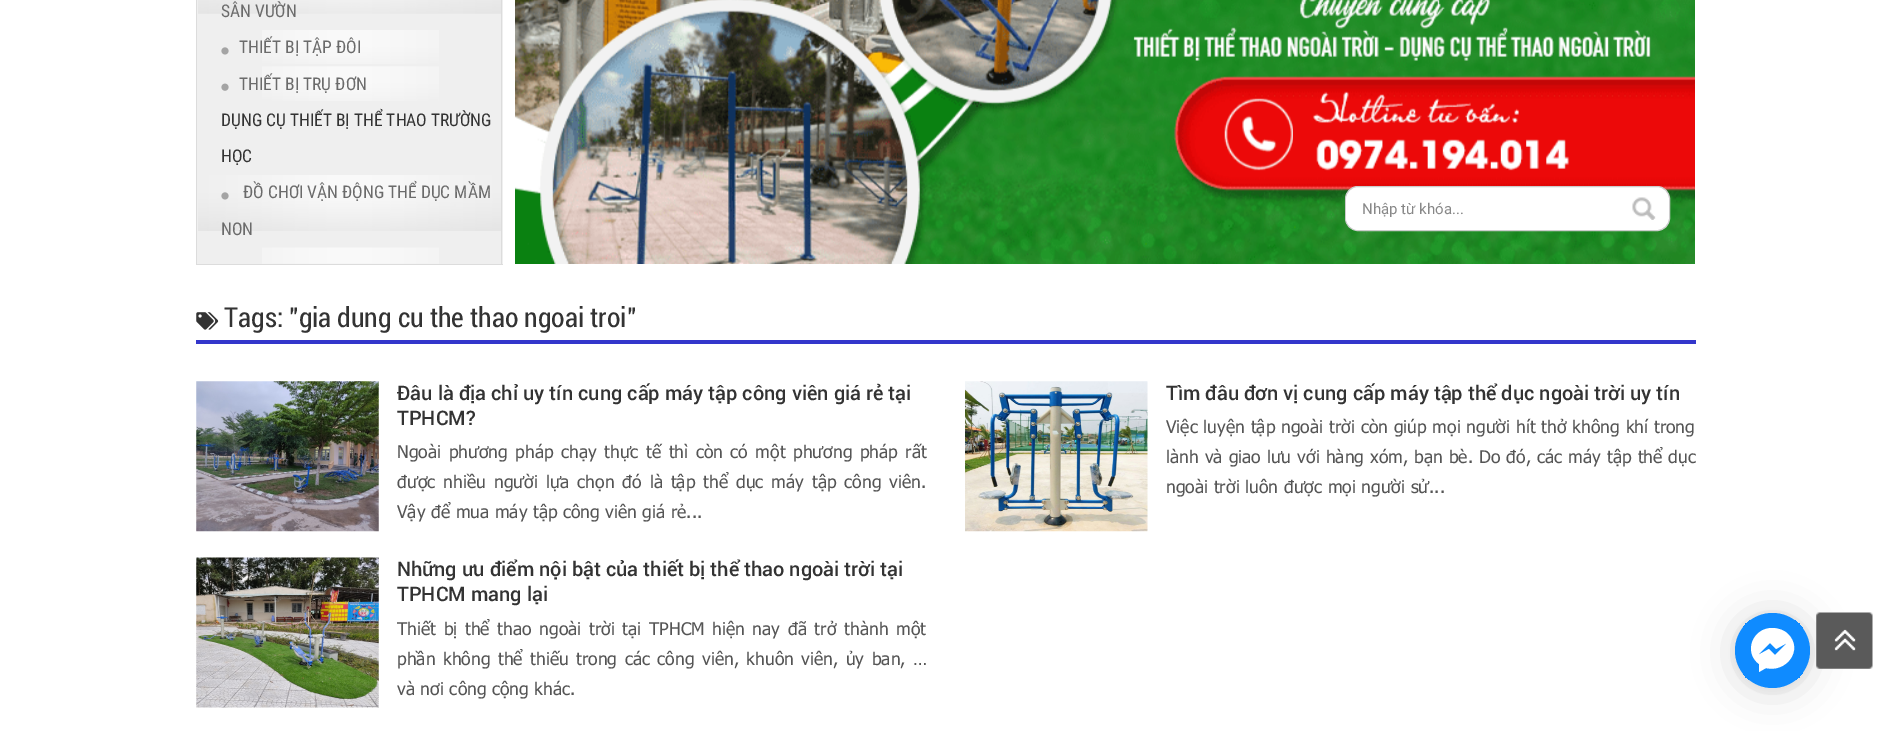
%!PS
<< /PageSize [1891 731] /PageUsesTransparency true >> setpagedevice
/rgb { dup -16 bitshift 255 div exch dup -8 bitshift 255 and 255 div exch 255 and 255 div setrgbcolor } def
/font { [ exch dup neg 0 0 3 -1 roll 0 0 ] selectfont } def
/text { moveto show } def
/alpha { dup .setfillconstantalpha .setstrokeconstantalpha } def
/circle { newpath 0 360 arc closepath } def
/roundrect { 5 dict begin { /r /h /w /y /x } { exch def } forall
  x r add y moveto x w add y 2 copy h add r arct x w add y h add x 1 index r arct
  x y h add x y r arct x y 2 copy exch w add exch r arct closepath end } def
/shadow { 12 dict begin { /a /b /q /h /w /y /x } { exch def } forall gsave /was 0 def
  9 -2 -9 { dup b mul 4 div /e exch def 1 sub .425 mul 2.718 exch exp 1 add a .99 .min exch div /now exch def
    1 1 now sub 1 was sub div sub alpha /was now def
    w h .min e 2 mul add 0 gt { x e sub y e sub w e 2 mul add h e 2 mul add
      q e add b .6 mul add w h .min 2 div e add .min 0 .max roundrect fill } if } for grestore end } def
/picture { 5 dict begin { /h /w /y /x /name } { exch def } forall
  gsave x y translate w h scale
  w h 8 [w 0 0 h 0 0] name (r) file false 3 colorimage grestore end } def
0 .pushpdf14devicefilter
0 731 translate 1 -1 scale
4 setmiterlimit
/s1 { /RobotoCondensed-Regular 17.5 font 16#6B6B6B rgb } def
/s2 { /RobotoCondensed-Regular 17.5 font 16#333333 rgb } def
/s3 { /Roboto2-Regular 15 font 16#888888 rgb } def
/s4 { /Roboto-Regular 27.5 font 16#333333 rgb } def
/s5 { /Roboto-Medium 20 font 16#333333 rgb } def
/s6 { /Tahoma-Regular 17.5 font 16#555555 rgb } def
16#FFFFFF rgb
0 0 1891 731 rectfill
16#EFEFEF rgb
197 0 306 264 rectfill
16#DCDCDC rgb
501 0 1 265 rectfill
196 264 307 1 rectfill
196 0 1 265 rectfill
(pic1.raw) 198 0 303 14 picture
s1
(SÂN VƯỜN) 221 17 text
(pic2.raw) 262 30 177 34 picture
(pic3.raw) 221 47 8 8 picture
(THIẾT BỊ TẬP ĐÔI) 239 53 text
(pic4.raw) 262 66 177 35 picture
(pic5.raw) 221 83 8 8 picture
(THIẾT BỊ TRỤ ĐƠN) 239 90 text
s2
(DỤNG CỤ THIẾT BỊ THỂ THAO TRƯỜNG) 221 126 text
(HỌC) 221 162 text
(pic6.raw) 198 175 303 56 picture
(pic7.raw) 221 192 8 8 picture
s1
(ĐỒ CHƠI VẬN ĐỘNG THỂ DỤC MẦM) 243 198 text
(NON) 221 235 text
(pic8.raw) 262 247 177 17 picture
(pic9.raw) 515 0 1180 264 picture
16#FFFFFF rgb
1345.5 186.5 324 44 12.5 roundrect gsave fill grestore
16#CCCCCC rgb
stroke
16#FFFFFF rgb
1359 188 moveto 1620 188 lineto 1620 230 lineto 1359 230 lineto 1352 230 1346 224 1346 217 curveto 1346 201 lineto 1346 194 1352 188 1359 188 curveto closepath fill
s3
(Nhập từ khóa...) 1362 214 text
(pic10.raw) 1632 197 24 23 picture
16#3336CB rgb
196 340 1500 4 rectfill
(pic11.raw) 196 312 23 18 picture
s4
(Tags: "gia dung cu the thao ngoai troi") 224 327 text
(pic12.raw) 196 381 183 151 picture
s5
(Đâu là địa chỉ uy tín cung cấp máy tập công viên giá rẻ tại) 397 400 text
(TPHCM?) 397 425 text
/Tahoma-Regular 17.5 font
16#555555 rgb
397 458 moveto 2 0 32 (Ngoài phương pháp chạy thực tế thì còn có một phương pháp rất) widthshow
397 488 moveto 2.4 0 32 (được nhiều người lựa chọn đó là tập thể dục máy tập công viên.) widthshow
(Vậy để mua máy tập công viên giá rẻ...) 397 518 text
(pic13.raw) 965 381 183 151 picture
s5
(Tìm đâu đơn vị cung cấp máy tập thể dục ngoài trời uy tín) 1166 400 text
/Tahoma-Regular 17.5 font
16#555555 rgb
1166 433 moveto 0.25 0 32 (Việc luyện tập ngoài trời còn giúp mọi người hít thở không khí trong) widthshow
1166 463 moveto 0.5 0 32 (lành và giao lưu với hàng xóm, bạn bè. Do đó, các máy tập thể dục) widthshow
(ngoài trời luôn được mọi người sử...) 1166 493 text
(pic14.raw) 196 557 183 151 picture
s5
(Những ưu điểm nội bật của thiết bị thể thao ngoài trời tại) 397 576 text
(TPHCM mang lại) 397 601 text
/Tahoma-Regular 17.5 font
16#555555 rgb
397 635 moveto 2.1 0 32 (Thiết bị thể thao ngoài trời tại TPHCM hiện nay đã trở thành một) widthshow
397 665 moveto 2 0 32 (phần không thể thiếu trong các công viên, khuôn viên, ủy ban, …) widthshow
(và nơi công cộng khác.) 397 695 text
16#0F0F0F rgb
1735 615 75 75 37.5 20 0.16 shadow
1735 614 75 75 37.5 4 0.06 shadow
16#0F8BFF rgb
1772.5 650.5 37.5 circle fill
gsave
1735 613 75 75 37.5 roundrect clip newpath
1743 620 60 60 rectfill
grestore
16#FFFFFF rgb
1772 628 moveto 1753 628 1743 652 1759 664 curveto 1759 672 lineto 1766 668 lineto 1786 673 1804 650 1788 634 curveto 1784 630 1778 628 1772 628 curveto closepath 1775 655 moveto 1769 649 lineto 1758 655 lineto 1770 643 lineto 1776 649 lineto 1787 643 lineto closepath fill
(pic15.raw) 1816 612 57 57 picture
.poppdf14devicefilter showpage
